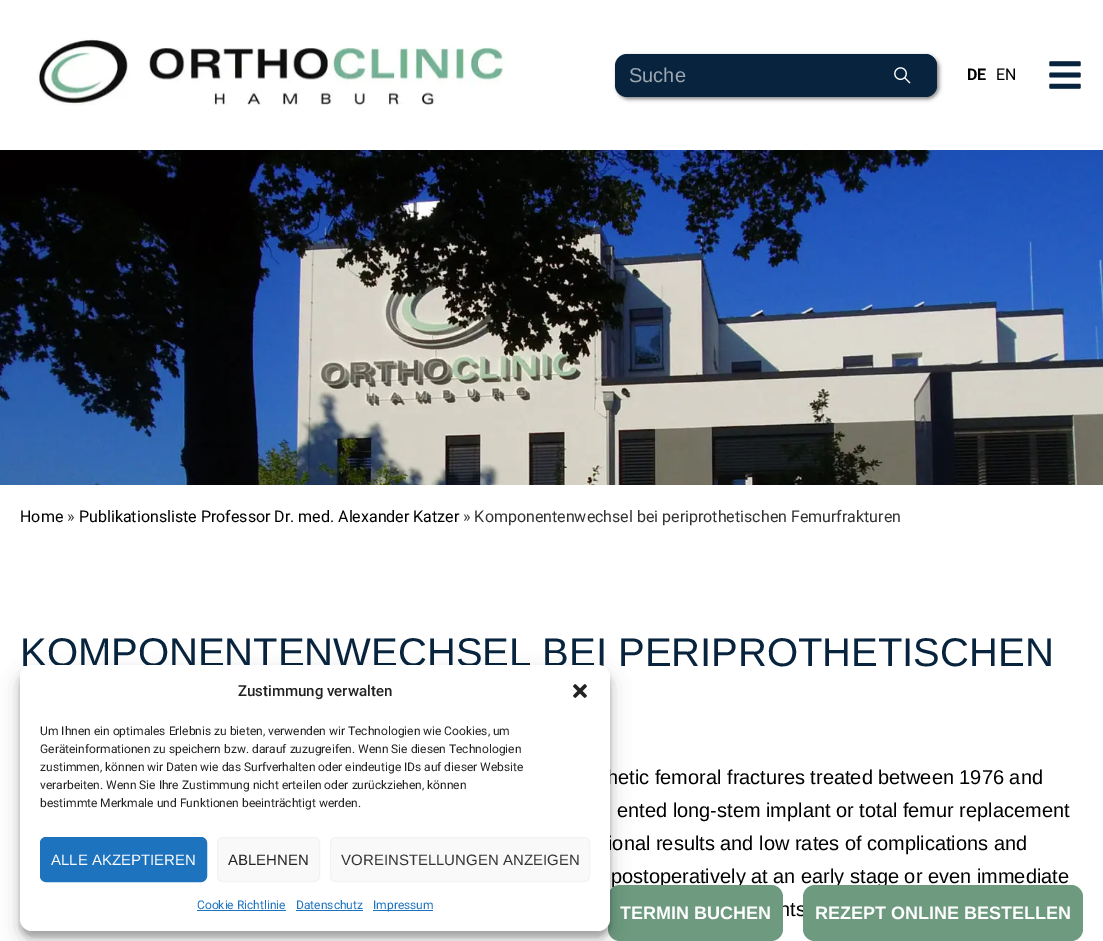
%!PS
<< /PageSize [1103 941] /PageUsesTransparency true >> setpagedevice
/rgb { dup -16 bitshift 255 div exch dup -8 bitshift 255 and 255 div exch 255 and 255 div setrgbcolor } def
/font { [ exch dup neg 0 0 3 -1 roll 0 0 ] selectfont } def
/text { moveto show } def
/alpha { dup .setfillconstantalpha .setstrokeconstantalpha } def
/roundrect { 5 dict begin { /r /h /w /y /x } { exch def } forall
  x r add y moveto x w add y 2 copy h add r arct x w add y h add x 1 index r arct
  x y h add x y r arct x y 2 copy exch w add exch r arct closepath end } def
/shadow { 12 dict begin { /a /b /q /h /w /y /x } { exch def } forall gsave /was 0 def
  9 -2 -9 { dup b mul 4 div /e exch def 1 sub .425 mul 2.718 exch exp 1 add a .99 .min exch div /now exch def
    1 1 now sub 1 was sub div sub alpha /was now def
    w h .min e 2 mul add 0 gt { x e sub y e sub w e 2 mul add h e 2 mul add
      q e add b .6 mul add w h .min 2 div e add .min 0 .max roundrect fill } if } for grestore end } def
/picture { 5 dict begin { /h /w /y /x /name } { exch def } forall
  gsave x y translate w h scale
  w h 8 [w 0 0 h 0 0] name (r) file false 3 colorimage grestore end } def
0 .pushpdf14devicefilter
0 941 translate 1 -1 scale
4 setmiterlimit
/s1 { /LiberationSans-Regular 20 font 16#9CA7B1 rgb } def
/s2 { /Roboto-Bold 16 font 16#000000 rgb } def
/s3 { /Roboto-Regular 16 font 16#000000 rgb } def
/s4 { /Roboto-Regular 16 font 16#333333 rgb } def
/s5 { /LiberationSans-Regular 40 font 16#08233D rgb } def
/s6 { /LiberationSans-Regular 20 font 16#000000 rgb } def
/s7 { /Roboto-Medium 15 font 16#222222 rgb } def
/s8 { /Roboto-Regular 12 font 16#222222 rgb } def
/s9 { /LiberationSans-Regular 15 font 16#FFFFFF rgb } def
/s10 { /LiberationSans-Regular 15 font 16#222222 rgb } def
/s11 { /LiberationSans-Regular 15 font 16#333333 rgb } def
/s12 { /Roboto-Regular 12 font 16#1E73BE rgb } def
/s13 { /LiberationSans-Bold 18 font 16#FFFFFF rgb } def
16#FFFFFF rgb
0 0 1103 941 rectfill
(pic1.raw) 37 38 469 68 picture
16#000000 rgb
617 56 322 43 12 2 0.5 shadow
16#08233D rgb
615 54 322 43 12 roundrect fill
s1
(Suche) 629 82 text
16#08233D rgb
866 54 moveto 925 54 lineto 931.5 54 937 59.5 937 66 curveto 937 85 lineto 937 91.5 931.5 97 925 97 curveto 866 97 lineto closepath fill
(pic2.raw) 894 67 17 17 picture
s2
(DE) 967 80 text
s3
(EN) 996 80 text
(pic3.raw) 1049 61 32 28 picture
(pic4.raw) 0 150 1103 335 picture
(Home) 20 522 text
s4
(») 67 522 text
s3
(Publikationsliste Professor Dr. med. Alexander Katzer) 79 522 text
s4
(» Komponentenwechsel bei periprothetischen Femurfrakturen) 463 522 text
s5
(KOMPONENTENWECHSEL BEI PERIPROTHETISCHEN) 20 666 text
s6
(hetic femoral fractures treated between 1976 and) 607 784 text
(ented long-stem implant or total femur replacement) 617 817 text
(ional results and low rates of complications and) 608 850 text
(postoperatively at an early stage or even immediate) 611 883 text
(nts) 779 916 text
16#6E9A80 rgb
608 885 175 56 12 roundrect fill
16#000000 rgb
20 671 590 266 12 3 0.23 shadow
20 675 590 266 12 10 0.19 shadow
16#FFFFFF rgb
20 665 590 266 12 roundrect fill
s7
(Zustimmung verwalten) 238 696 text
(pic5.raw) 573 684 14 14 picture
s8
(Um Ihnen ein optimales Erlebnis zu bieten, verwenden wir Technologien wie Cookies, um) 40 735 text
(Geräteinformationen zu speichern bzw. darauf zuzugreifen. Wenn Sie diesen Technologien) 40 753 text
(zustimmen, können wir Daten wie das Surfverhalten oder eindeutige IDs auf dieser Website) 40 771 text
(verarbeiten. Wenn Sie Ihre Zustimmung nicht erteilen oder zurückziehen, können) 40 789 text
(bestimmte Merkmale und Funktionen beeinträchtigt werden.) 40 807 text
16#1E73BE rgb
40.5 837.5 166 44 5.5 roundrect gsave fill grestore
stroke
s9
(ALLE AKZEPTIEREN) 51 865 text
16#F9F9F9 rgb
217.5 837.5 102 44 5.5 roundrect gsave fill grestore
16#F2F2F2 rgb
stroke
s10
(ABLEHNEN) 228 865 text
16#F9F9F9 rgb
330.5 837.5 259 44 5.5 roundrect gsave fill grestore
16#F2F2F2 rgb
stroke
s11
(VOREINSTELLUNGEN ANZEIGEN) 341 865 text
s12
(Cookie Richtlinie) 197 909 text
197 910 89 1 rectfill
(Datenschutz) 296 909 text
296 910 67 1 rectfill
373 910 60 1 rectfill
(Impressum) 373 909 text
s13
(TERMIN BUCHEN) 620 919 text
16#6E9A80 rgb
803 885 280 56 12 roundrect fill
s13
(REZEPT ONLINE BESTELLEN) 815 919 text
.poppdf14devicefilter showpage
